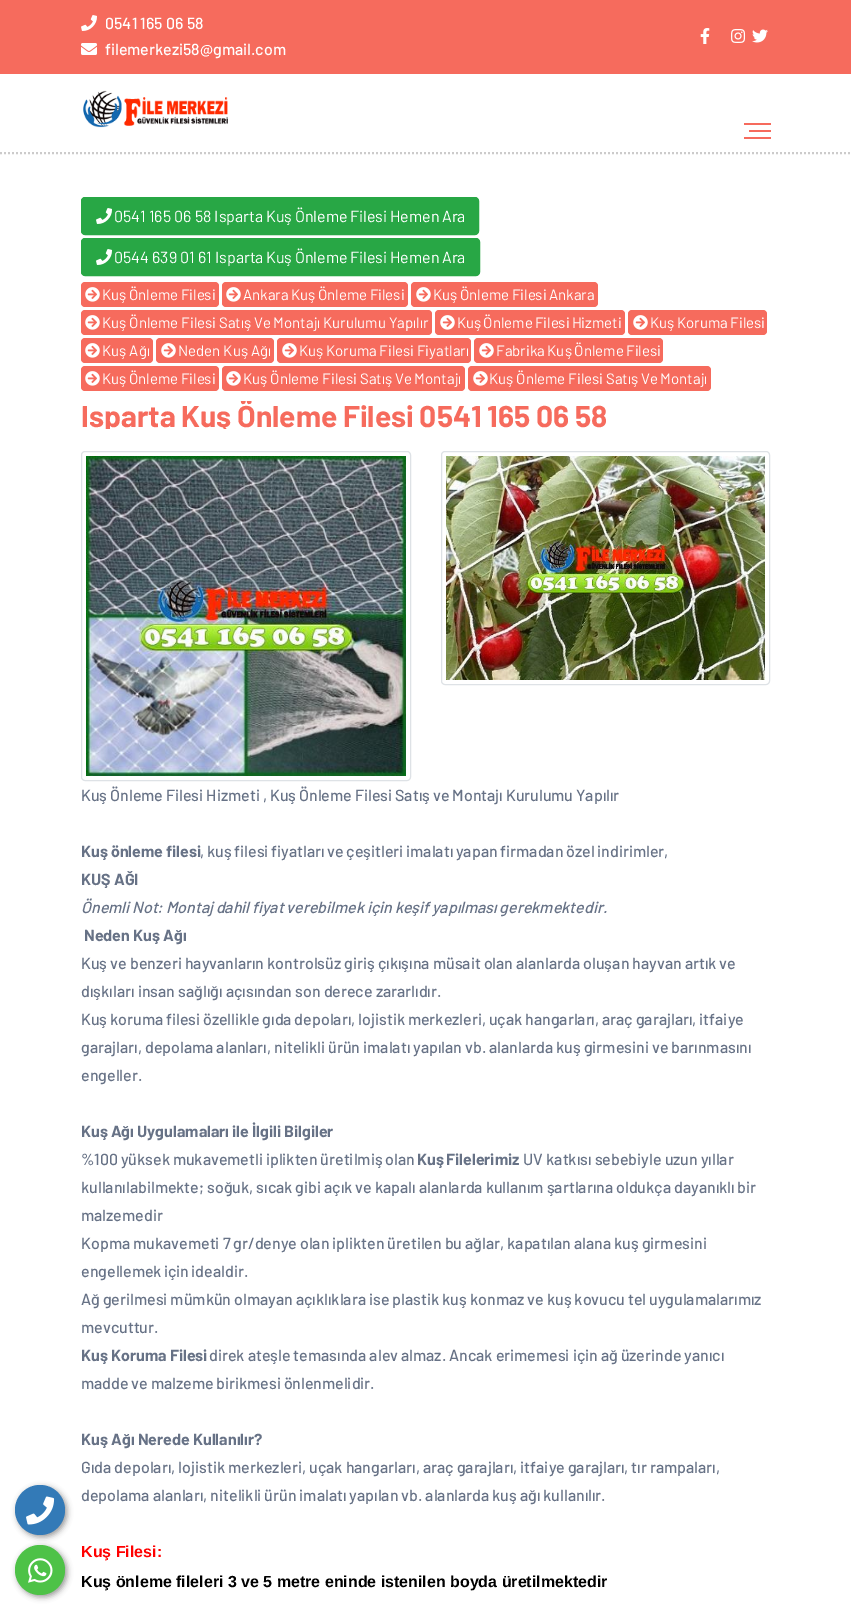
%!PS
<< /PageSize [851 1610] /PageUsesTransparency true >> setpagedevice
/rgb { dup -16 bitshift 255 div exch dup -8 bitshift 255 and 255 div exch 255 and 255 div setrgbcolor } def
/font { [ exch dup neg 0 0 3 -1 roll 0 0 ] selectfont } def
/text { moveto show } def
/alpha { dup .setfillconstantalpha .setstrokeconstantalpha } def
/circle { newpath 0 360 arc closepath } def
/roundrect { 5 dict begin { /r /h /w /y /x } { exch def } forall
  x r add y moveto x w add y 2 copy h add r arct x w add y h add x 1 index r arct
  x y h add x y r arct x y 2 copy exch w add exch r arct closepath end } def
/shadow { 12 dict begin { /a /b /q /h /w /y /x } { exch def } forall gsave /was 0 def
  9 -2 -9 { dup b mul 4 div /e exch def 1 sub .425 mul 2.718 exch exp 1 add a .99 .min exch div /now exch def
    1 1 now sub 1 was sub div sub alpha /was now def
    w h .min e 2 mul add 0 gt { x e sub y e sub w e 2 mul add h e 2 mul add
      q e add b .6 mul add w h .min 2 div e add .min 0 .max roundrect fill } if } for grestore end } def
/picture { 5 dict begin { /h /w /y /x /name } { exch def } forall
  gsave x y translate w h scale
  w h 8 [w 0 0 h 0 0] name (r) file false 3 colorimage grestore end } def
0 .pushpdf14devicefilter
0 1610 translate 1 -1 scale
4 setmiterlimit
/s1 { /Barlow-Medium 16 font 16#FFFFFF rgb } def
/s2 { /Barlow-Regular 16 font 16#FFFFFF rgb } def
/s3 { /Barlow-Regular 15 font 16#FFFFFF rgb } def
/s4 { /Barlow-Bold 30 font 16#F66B5D rgb } def
/s5 { /Barlow-Bold 16 font 16#677286 rgb } def
/s6 { /Barlow-Medium 16 font 16#677286 rgb } def
/s7 { /LiberationSans-Bold 16 font 16#FF0000 rgb } def
/s8 { /LiberationSans-Bold 16 font 16#000000 rgb } def
16#FFFFFF rgb
0 0 851 1610 rectfill
16#CCCBCB rgb
2 setlinewidth
[2 2] 0 setdash
0 153 moveto 851 153 lineto stroke
16#F66B5D rgb
0 0 851 74 rectfill
(pic1.raw) 81 15 16 16 picture
s1
(0541 165 06 58) 105 29 text
(pic2.raw) 81 43 16 12 picture
(filemerkezi58@gmail.com) 105 55 text
(pic3.raw) 700 28 10 16 picture
(pic4.raw) 731 29 15 14 picture
(pic5.raw) 752 29 16 14 picture
(pic6.raw) 83 90 145 38 picture
16#F66B5D rgb
744 123 27 2 rectfill
749 130 22 2 rectfill
744 137 27 2 rectfill
16#000000 rgb
17 1487 50 50 25 3 0.4 shadow
16#337AB7 rgb
40 1510 25 circle fill
(pic7.raw) 26 1496 29 29 picture
16#28A745 rgb
81.5 197.5 397 37 3.5 roundrect gsave fill grestore
1 setlinewidth
[] 0 setdash
stroke
(pic8.raw) 96 208 16 16 picture
s2
(0541 165 06 58 Isparta) 114 222 text
266 222 moveto -0.5 0 32 (Kuş Önleme Filesi Hemen Ara) widthshow
16#28A745 rgb
81.5 238.5 398 37 3.5 roundrect gsave fill grestore
stroke
(pic8.raw) 96 249 16 16 picture
s2
(0544 639 01 61 Isparta) 114 263 text
266 263 moveto -0.5 0 32 (Kuş Önleme Filesi Hemen Ara) widthshow
16#F66B5D rgb
81 282 138 25 4 roundrect fill
(pic9.raw) 85 287 15 15 picture
/Barlow-Regular 15 font
16#FFFFFF rgb
102 300 moveto -0.5 0 32 (Kuş Önleme Filesi) widthshow
16#F66B5D rgb
222 282 186 25 4 roundrect fill
(pic9.raw) 226 287 15 15 picture
16#FFFFFF rgb
243 300 moveto -0.5 0 32 (Ankara Kuş Önleme Filesi) widthshow
16#F66B5D rgb
411 282 187 25 4 roundrect fill
(pic9.raw) 416 287 15 15 picture
16#FFFFFF rgb
433 300 moveto -0.5 0 32 (Kuş Önleme Filesi Ankara) widthshow
16#F66B5D rgb
81 310 351 25 4 roundrect fill
(pic9.raw) 85 315 15 15 picture
16#FFFFFF rgb
102 328 moveto -0.25 0 32 (Kuş Önleme Filesi Satış Ve Montajı Kurulumu Yapılır) widthshow
16#F66B5D rgb
435 310 190 25 4 roundrect fill
(pic9.raw) 440 315 15 15 picture
16#FFFFFF rgb
457 328 moveto -1 0 32 (Kuş Önleme Filesi Hizmeti) widthshow
16#F66B5D rgb
628 310 139 25 4 roundrect fill
(pic9.raw) 633 315 15 15 picture
16#FFFFFF rgb
650 328 moveto -0.5 0 32 (Kuş Koruma Filesi) widthshow
16#F66B5D rgb
81 338 72 25 4 roundrect fill
(pic9.raw) 85 343 15 15 picture
s3
(Kuş Ağı) 102 356 text
16#F66B5D rgb
156 338 118 25 4 roundrect fill
(pic9.raw) 161 343 15 15 picture
s3
(Neden Kuş Ağı) 178 356 text
16#F66B5D rgb
277 338 194 25 4 roundrect fill
(pic9.raw) 282 343 15 15 picture
16#FFFFFF rgb
299 356 moveto -0.5 0 32 (Kuş Koruma Filesi Fiyatları) widthshow
16#F66B5D rgb
474 338 189 25 4 roundrect fill
(pic9.raw) 479 343 15 15 picture
16#FFFFFF rgb
496 356 moveto -0.5 0 32 (Fabrika Kuş Önleme Filesi) widthshow
16#F66B5D rgb
81 366 138 25 4 roundrect fill
(pic9.raw) 85 371 15 15 picture
16#FFFFFF rgb
102 384 moveto -0.5 0 32 (Kuş Önleme Filesi) widthshow
16#F66B5D rgb
222 366 243 25 4 roundrect fill
(pic9.raw) 226 371 15 15 picture
16#FFFFFF rgb
243 384 moveto -0.25 0 32 (Kuş Önleme Filesi Satış Ve Montajı) widthshow
16#F66B5D rgb
468 366 243 25 4 roundrect fill
(pic9.raw) 473 371 15 15 picture
16#FFFFFF rgb
489 384 moveto -0.25 0 32 (Kuş Önleme Filesi Satış Ve Montajı) widthshow
gsave
81 401 690 28 rectclip
s4
(Isparta) 81 427 text
181 427 moveto -0.25 0 32 (Kuş Önleme Filesi 0541 165 06 58) widthshow
grestore
16#DEE2E6 rgb
81.5 451.5 329 329 3.5 roundrect stroke
(pic10.raw) 86 456 320 320 picture
441.5 451.5 328 233 3.5 roundrect stroke
(pic11.raw) 446 456 319 224 picture
/Barlow-Medium 16 font
16#677286 rgb
81 801 moveto -0.25 0 32 (Kuş Önleme Filesi Hizmeti , Kuş Önleme Filesi Satış ve Montajı Kurulumu Yapılır) widthshow
/Barlow-Bold 16 font
81 857 moveto -0.25 0 32 (Kuş önleme filesi) widthshow
/Barlow-Medium 16 font
200 857 moveto -0.5 0 32 (, kuş filesi fiyatları ve çeşitleri imalatı yapan firmadan özel indirimler,) widthshow
s5
(KUŞ AĞI) 81 885 text
/Barlow-MediumItalic 16 font
81 913 moveto -0.5 0 32 (Önemli Not: Montaj dahil fiyat verebilmek için keşif yapılması gerekmektedir.) widthshow
s5
(Neden Kuş Ağı) 84 941 text
/Barlow-Medium 16 font
81 969 moveto -0.2 0 32 (Kuş ve benzeri hayvanların kontrolsüz giriş çıkışına müsait olan alanlarda oluşan hayvan artık ve) widthshow
(dışkıları insan sağlığı açısından son derece zararlıdır.) 81 997 text
81 1025 moveto -0.4 0 32 (Kuş koruma filesi özellikle gıda depoları, lojistik merkezleri, uçak hangarları, araç garajları, itfaiye) widthshow
81 1053 moveto -0.25 0 32 (garajları, depolama alanları, nitelikli ürün imalatı yapılan vb. alanlarda kuş girmesini ve barınmasını) widthshow
(engeller.) 81 1081 text
/Barlow-Bold 16 font
81 1137 moveto -0.25 0 32 (Kuş Ağı Uygulamaları ile İlgili Bilgiler) widthshow
/Barlow-Medium 16 font
81 1165 moveto -0.5 0 32 (%100 yüksek mukavemetli iplikten üretilmiş olan) widthshow
/Barlow-Bold 16 font
417 1165 moveto -1 0 32 (Kuş Filelerimiz) widthshow
s6
(UV katkısı sebebiyle uzun yıllar) 523 1165 text
81 1193 moveto -0.25 0 32 (kullanılabilmekte; soğuk, sıcak gibi açık ve kapalı alanlarda kullanım şartlarına oldukça dayanıklı bir) widthshow
(malzemedir) 81 1221 text
81 1249 moveto -0.25 0 32 (Kopma mukavemeti 7 gr/denye olan iplikten üretilen bu ağlar, kapatılan alana kuş girmesini) widthshow
81 1277 moveto -1 0 32 (engellemek için idealdir.) widthshow
81 1305 moveto -0.2 0 32 (Ağ gerilmesi mümkün olmayan açıklıklara ise plastik kuş konmaz ve kuş kovucu tel uygulamalarımız) widthshow
(mevcuttur.) 81 1333 text
s5
(Kuş Koruma Filesi) 81 1361 text
/Barlow-Medium 16 font
209 1361 moveto -0.25 0 32 (direk ateşle temasında alev almaz. Ancak erimemesi için ağ üzerinde yanıcı) widthshow
81 1389 moveto -0.5 0 32 (madde ve malzeme birikmesi önlenmelidir.) widthshow
s5
(Kuş Ağı Nerede Kullanılır?) 81 1445 text
/Barlow-Medium 16 font
81 1473 moveto -0.25 0 32 (Gıda depoları, lojistik merkezleri, uçak hangarları, araç garajları, itfaiye garajları, tır rampaları,) widthshow
81 1501 moveto -0.25 0 32 (depolama alanları, nitelikli ürün imalatı yapılan vb. alanlarda kuş ağı kullanılır.) widthshow
s7
(Kuş Filesi:) 81 1557 text
s8
(Kuş önleme fileleri 3 ve 5 metre eninde istenilen boyda üretilmektedir) 81 1587 text
17 1547 50 50 25 3 0.4 shadow
16#4DC247 rgb
40 1570 25 circle fill
(pic12.raw) 28 1558 25 25 picture
.poppdf14devicefilter showpage
